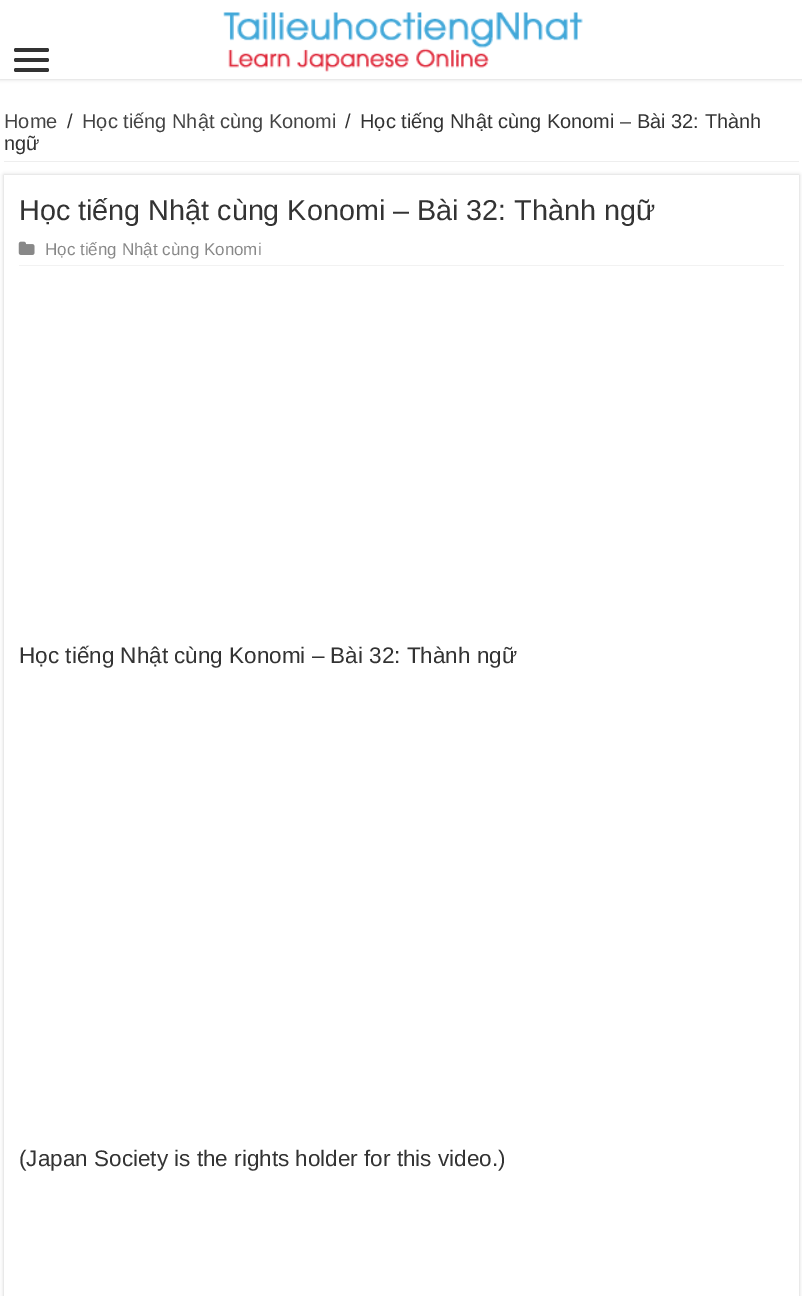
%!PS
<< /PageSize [802 1296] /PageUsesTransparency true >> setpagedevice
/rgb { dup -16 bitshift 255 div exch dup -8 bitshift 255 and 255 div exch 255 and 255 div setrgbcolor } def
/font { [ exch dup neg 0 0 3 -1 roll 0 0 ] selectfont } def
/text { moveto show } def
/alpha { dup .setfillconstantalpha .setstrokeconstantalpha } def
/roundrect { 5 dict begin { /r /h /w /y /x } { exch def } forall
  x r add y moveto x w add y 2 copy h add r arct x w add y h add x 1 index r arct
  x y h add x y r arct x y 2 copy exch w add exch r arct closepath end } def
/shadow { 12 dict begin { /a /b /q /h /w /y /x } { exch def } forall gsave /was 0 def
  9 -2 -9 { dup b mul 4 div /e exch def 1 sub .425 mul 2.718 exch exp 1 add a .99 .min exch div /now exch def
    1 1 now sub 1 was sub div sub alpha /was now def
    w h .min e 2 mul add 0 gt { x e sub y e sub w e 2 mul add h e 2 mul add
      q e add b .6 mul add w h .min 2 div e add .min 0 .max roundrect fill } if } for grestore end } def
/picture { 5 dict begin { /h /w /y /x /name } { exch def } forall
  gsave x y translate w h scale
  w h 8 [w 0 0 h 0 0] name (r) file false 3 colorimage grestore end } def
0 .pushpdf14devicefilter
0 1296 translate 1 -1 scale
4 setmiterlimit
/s1 { /LiberationSans-Regular 20 font 16#444444 rgb } def
/s2 { /LiberationSans-Regular 20 font 16#333333 rgb } def
/s3 { /LiberationSans-Regular 28.75 font 16#333333 rgb } def
/s4 { /LiberationSans-Regular 17 font 16#888888 rgb } def
/s5 { /LiberationSans-Regular 22.5 font 16#333333 rgb } def
16#FFFFFF rgb
0 0 802 1296 rectfill
16#CACACA rgb
0 0 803 79 0 2 1 shadow
16#FFFFFF rgb
0 0 802 79 rectfill
16#333333 rgb
14 48 35 4 2 roundrect fill
14 58 35 4 2 roundrect fill
14 68 35 4 2 roundrect fill
(pic1.raw) 223 12 360 60 picture
16#EEEEEE rgb
4 161 795 1 rectfill
s1
(Home) 4 128 text
s2
(/) 67 128 text
s1
(Học tiếng Nhật cùng Konomi) 82 128 text
s2
(/) 345 128 text
(Học tiếng Nhật cùng Konomi – Bài 32: Thành) 360 128 text
(ngữ) 4 150 text
16#CACACA rgb
4 175 795 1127 0 2 1 shadow
16#FFFFFF rgb
4 175 795 1121 rectfill
s3
(Học tiếng Nhật cùng Konomi – Bài 32: Thành ngữ) 19 220 text
16#F2F2F2 rgb
19 265 765 1 rectfill
(pic2.raw) 18 241 17 14 picture
s4
(Học tiếng Nhật cùng Konomi) 45 255 text
s5
(Học tiếng Nhật cùng Konomi – Bài 32: Thành ngữ) 19 663 text
(\(Japan Society is the rights holder for this video.\)) 19 1166 text
.poppdf14devicefilter showpage
